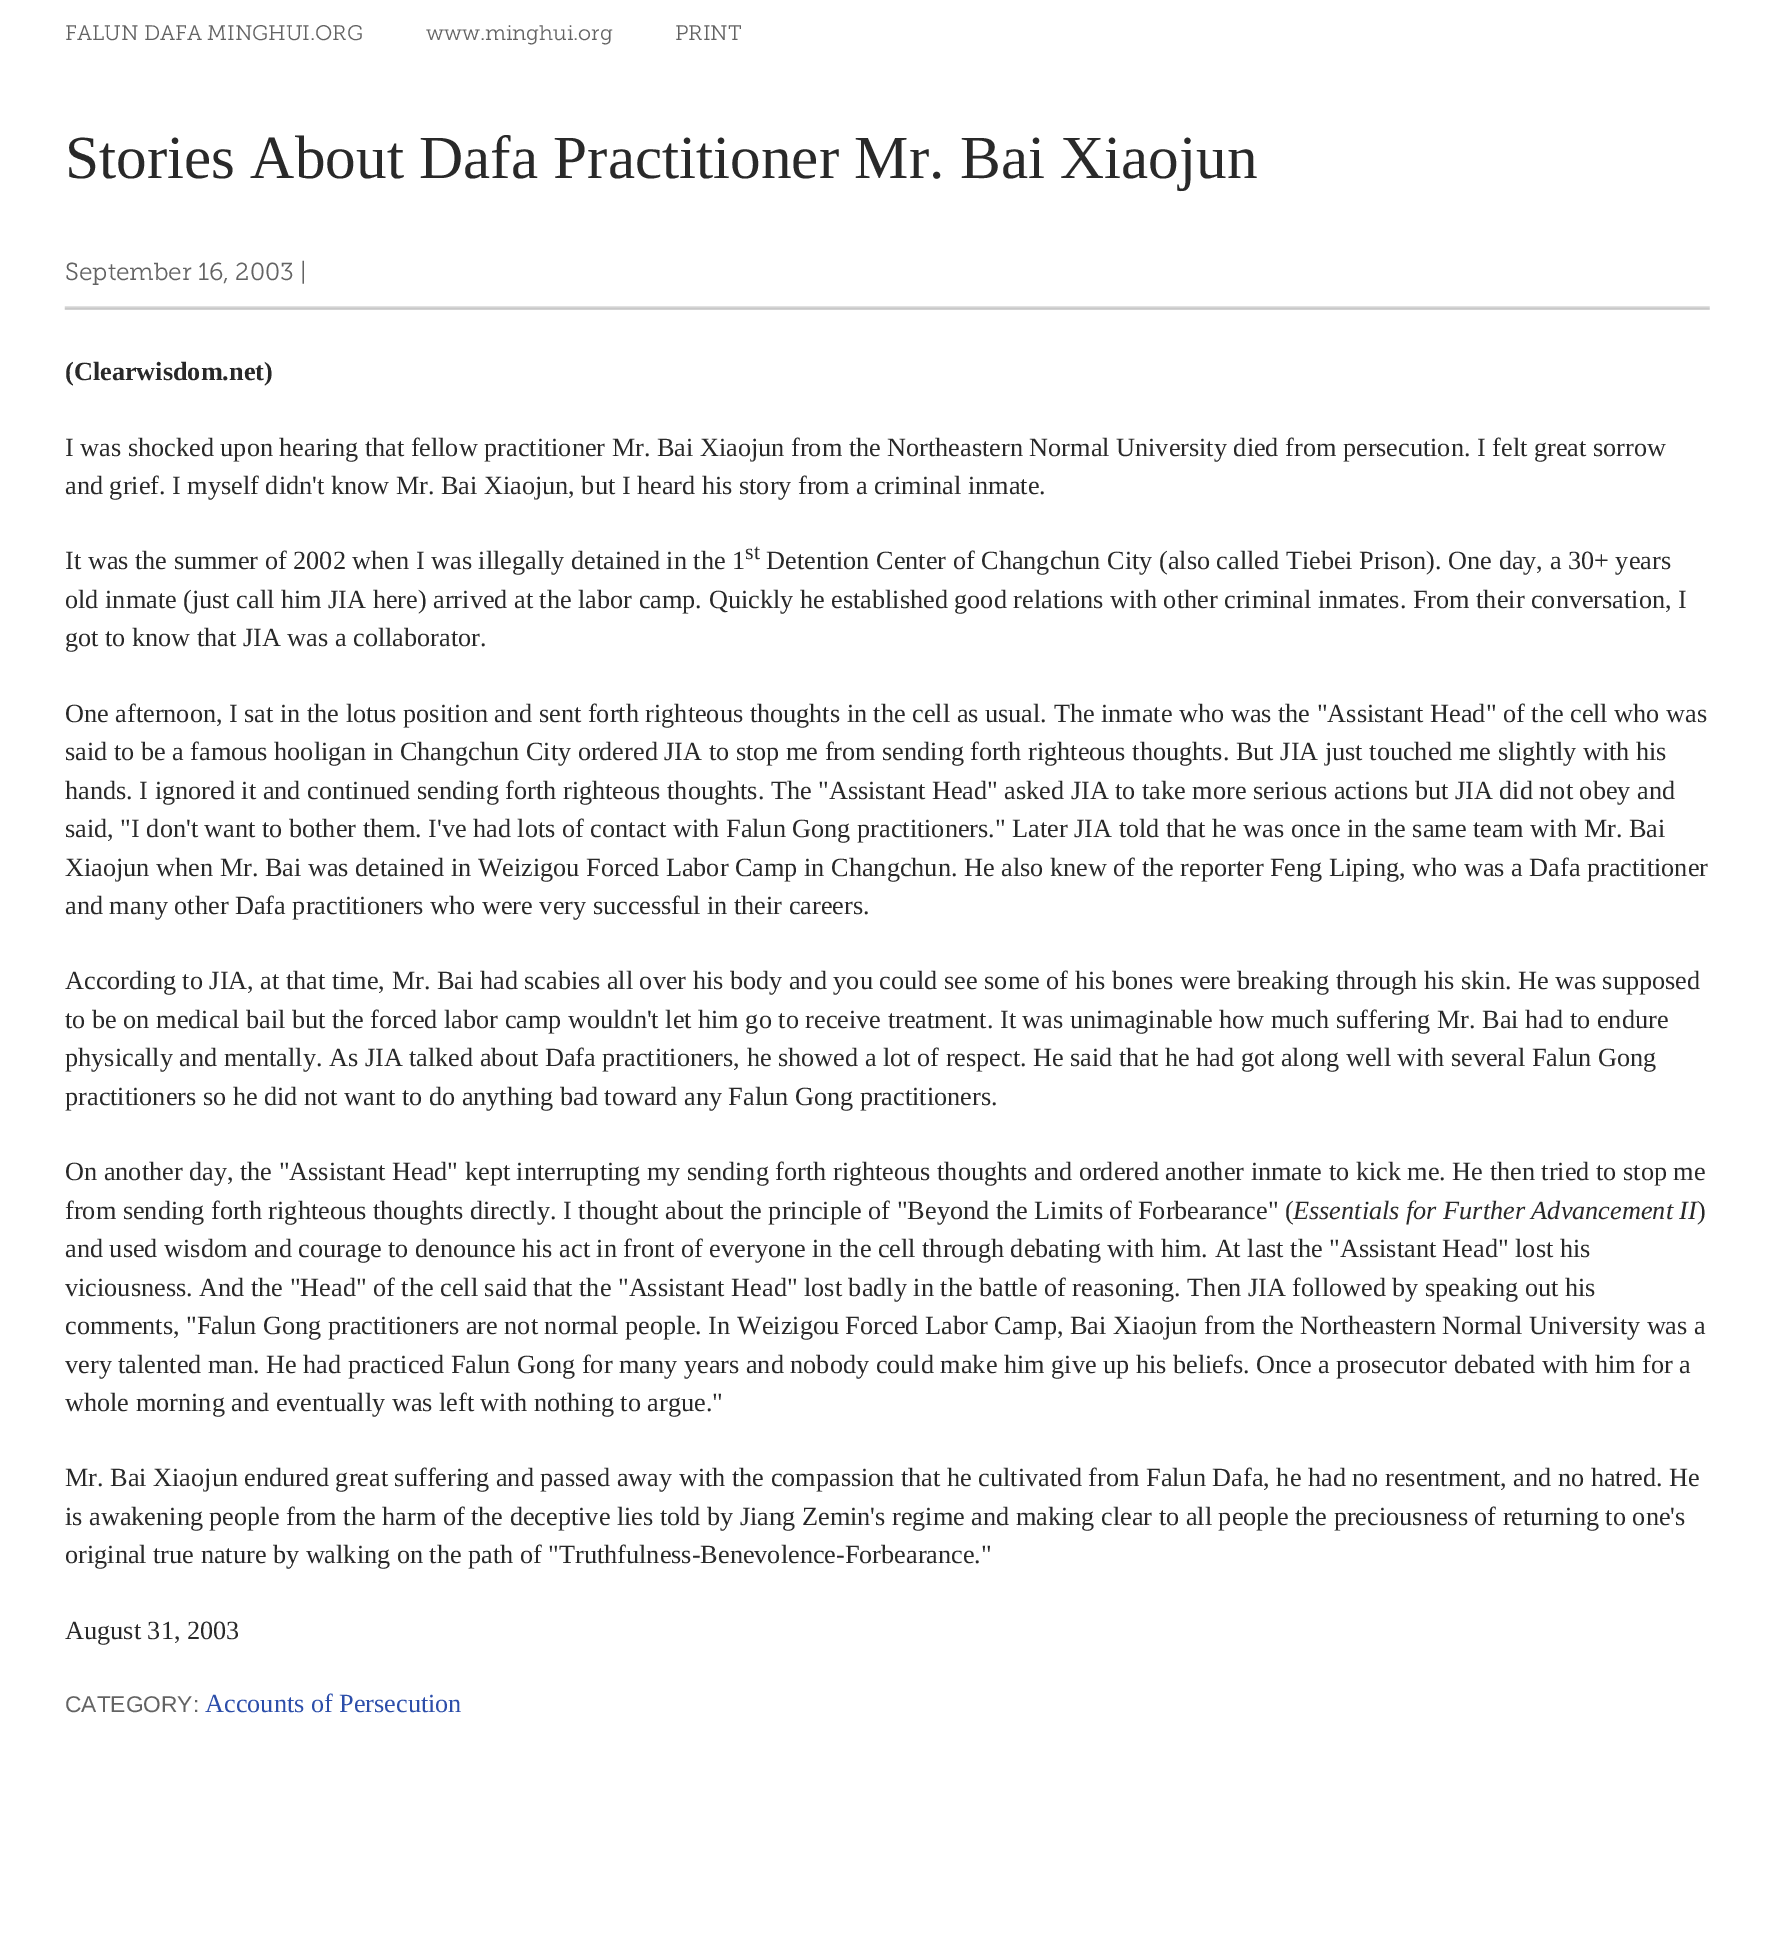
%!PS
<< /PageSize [1773 1951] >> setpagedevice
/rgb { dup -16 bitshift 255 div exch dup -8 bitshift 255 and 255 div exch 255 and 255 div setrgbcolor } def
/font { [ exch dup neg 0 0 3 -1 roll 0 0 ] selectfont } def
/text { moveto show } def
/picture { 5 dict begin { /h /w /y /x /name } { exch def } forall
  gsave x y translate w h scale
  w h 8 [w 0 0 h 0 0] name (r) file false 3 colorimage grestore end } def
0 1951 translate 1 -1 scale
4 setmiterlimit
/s1 { /MuseoSlab-Light 21 font 16#636363 rgb } def
/s2 { /LiberationSerif-Regular 61.25 font 16#292929 rgb } def
/s3 { /MuseoSlab-Light 24.5 font 16#636363 rgb } def
/s4 { /LiberationSerif-Bold 26.25 font 16#292929 rgb } def
/s5 { /LiberationSerif-Regular 26.25 font 16#292929 rgb } def
/s6 { /LiberationSerif-Regular 22 font 16#292929 rgb } def
/s7 { /LiberationSerif-Italic 26.25 font 16#292929 rgb } def
/s8 { /LiberationSans-Regular 22.75 font 16#636363 rgb } def
/s9 { /LiberationSerif-Regular 26.25 font 16#2C4EAA rgb } def
16#FFFFFF rgb
0 0 1773 1951 rectfill
s1
(FALUN DAFA MINGHUI.ORG) 65 40 text
(www.minghui.org) 426 40 text
(PRINT) 675 40 text
s2
(Stories About Dafa Practitioner Mr. Bai Xiaojun) 65 178 text
(pic1.raw) 64 306 1646 4 picture
s3
(September 16, 2003 |) 65 280 text
s4
(\(Clearwisdom.net\)) 65 380 text
s5
(I was shocked upon hearing that fellow practitioner Mr. Bai Xiaojun from the Northeastern Normal University died from persecution. I felt great sorrow) 65 456 text
(and grief. I myself didn't know Mr. Bai Xiaojun, but I heard his story from a criminal inmate.) 65 494 text
(It was the summer of 2002 when I was illegally detained in the 1) 65 569 text
s6
(st) 745 559 text
s5
(Detention Center of Changchun City \(also called Tiebei Prison\). One day, a 30+ years) 766 569 text
(old inmate \(just call him JIA here\) arrived at the labor camp. Quickly he established good relations with other criminal inmates. From their conversation, I) 65 608 text
(got to know that JIA was a collaborator.) 65 646 text
(One afternoon, I sat in the lotus position and sent forth righteous thoughts in the cell as usual. The inmate who was the "Assistant Head" of the cell who was) 65 722 text
(said to be a famous hooligan in Changchun City ordered JIA to stop me from sending forth righteous thoughts. But JIA just touched me slightly with his) 65 760 text
(hands. I ignored it and continued sending forth righteous thoughts. The "Assistant Head" asked JIA to take more serious actions but JIA did not obey and) 65 799 text
(said, "I don't want to bother them. I've had lots of contact with Falun Gong practitioners." Later JIA told that he was once in the same team with Mr. Bai) 65 837 text
(Xiaojun when Mr. Bai was detained in Weizigou Forced Labor Camp in Changchun. He also knew of the reporter Feng Liping, who was a Dafa practitioner) 65 876 text
(and many other Dafa practitioners who were very successful in their careers.) 65 914 text
(According to JIA, at that time, Mr. Bai had scabies all over his body and you could see some of his bones were breaking through his skin. He was supposed) 65 989 text
(to be on medical bail but the forced labor camp wouldn't let him go to receive treatment. It was unimaginable how much suffering Mr. Bai had to endure) 65 1028 text
(physically and mentally. As JIA talked about Dafa practitioners, he showed a lot of respect. He said that he had got along well with several Falun Gong) 65 1066 text
(practitioners so he did not want to do anything bad toward any Falun Gong practitioners.) 65 1105 text
(On another day, the "Assistant Head" kept interrupting my sending forth righteous thoughts and ordered another inmate to kick me. He then tried to stop me) 65 1180 text
(from sending forth righteous thoughts directly. I thought about the principle of "Beyond the Limits of Forbearance" \() 65 1219 text
s7
(Essentials for Further Advancement II) 1293 1219 text
s5
(\)) 1697 1219 text
(and used wisdom and courage to denounce his act in front of everyone in the cell through debating with him. At last the "Assistant Head" lost his) 65 1257 text
(viciousness. And the "Head" of the cell said that the "Assistant Head" lost badly in the battle of reasoning. Then JIA followed by speaking out his) 65 1296 text
(comments, "Falun Gong practitioners are not normal people. In Weizigou Forced Labor Camp, Bai Xiaojun from the Northeastern Normal University was a) 65 1334 text
(very talented man. He had practiced Falun Gong for many years and nobody could make him give up his beliefs. Once a prosecutor debated with him for a) 65 1373 text
(whole morning and eventually was left with nothing to argue.") 65 1411 text
(Mr. Bai Xiaojun endured great suffering and passed away with the compassion that he cultivated from Falun Dafa, he had no resentment, and no hatred. He) 65 1486 text
(is awakening people from the harm of the deceptive lies told by Jiang Zemin's regime and making clear to all people the preciousness of returning to one's) 65 1525 text
(original true nature by walking on the path of "Truthfulness-Benevolence-Forbearance.") 65 1563 text
(August 31, 2003) 65 1639 text
s8
(CATEGORY:) 65 1712 text
s9
(Accounts of Persecution) 205 1712 text
showpage
